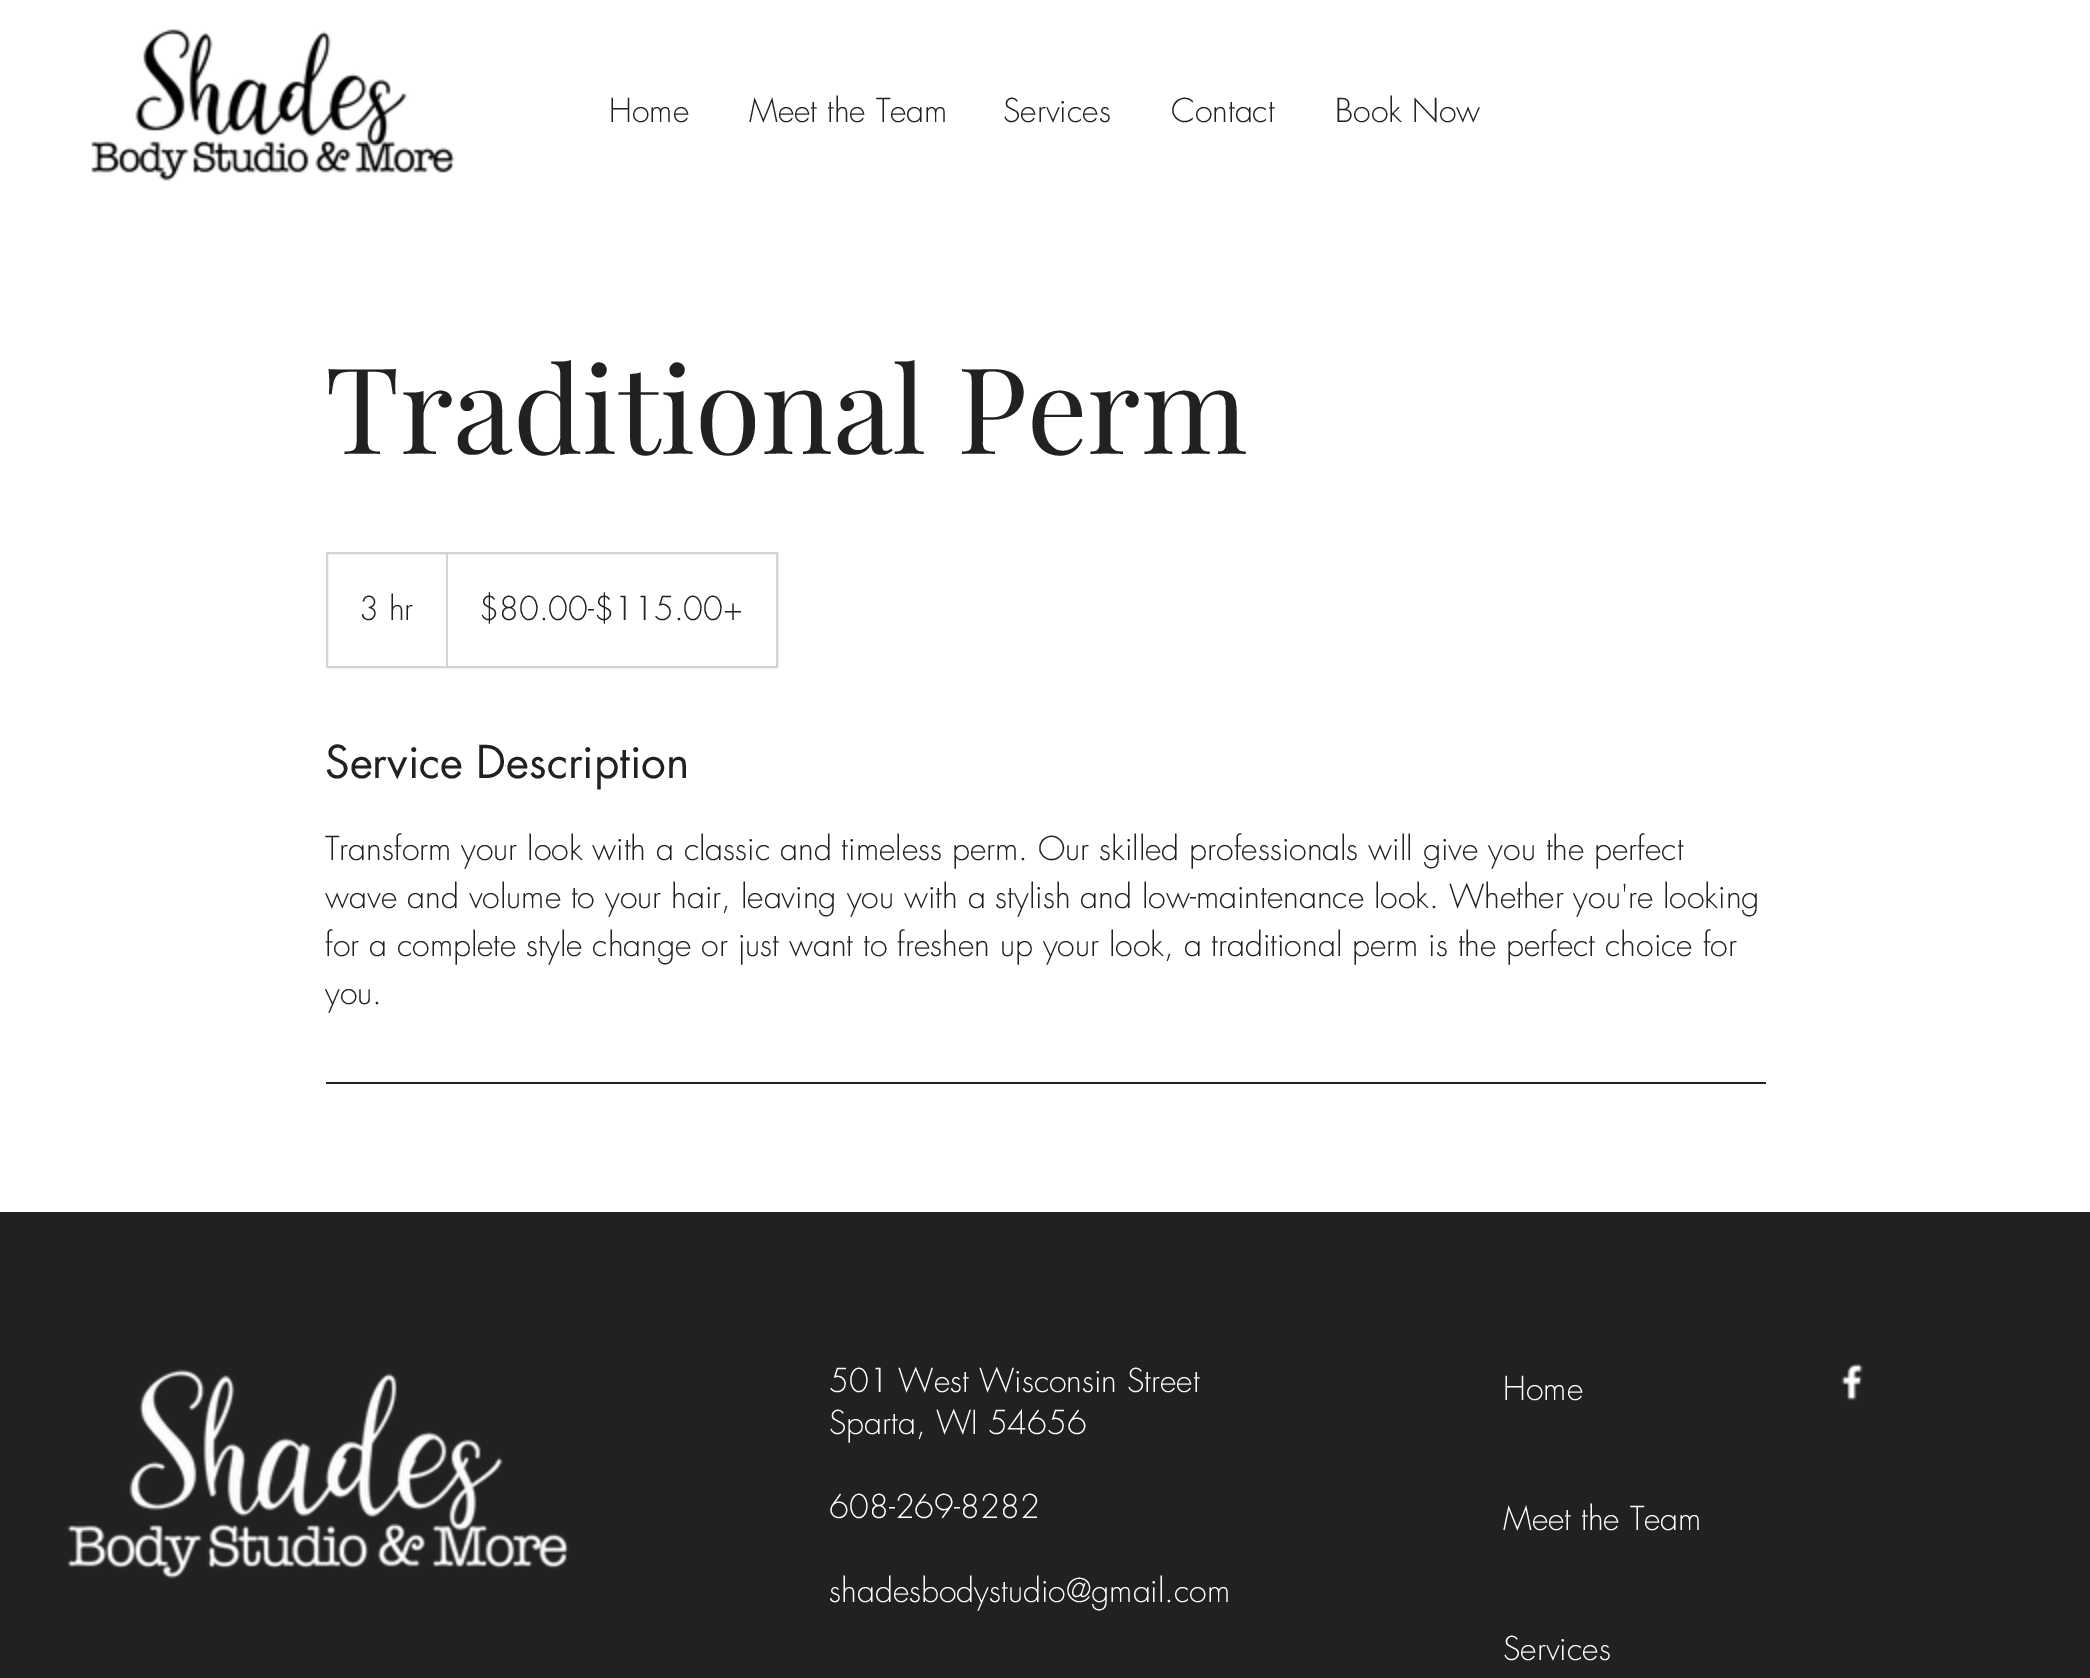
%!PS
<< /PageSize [2090 1678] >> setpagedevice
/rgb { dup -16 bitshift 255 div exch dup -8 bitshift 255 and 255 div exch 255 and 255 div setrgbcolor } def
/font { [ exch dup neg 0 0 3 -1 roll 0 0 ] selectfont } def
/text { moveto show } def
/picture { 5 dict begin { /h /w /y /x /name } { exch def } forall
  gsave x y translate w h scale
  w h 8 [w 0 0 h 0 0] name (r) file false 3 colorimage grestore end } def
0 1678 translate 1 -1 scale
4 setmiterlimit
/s1 { /futura-Light 32 font 16#212121 rgb } def
/s2 { /PlayfairDisplay-Regular 120 font 16#212121 rgb } def
/s3 { /futura-Regular 44 font 16#212121 rgb } def
/s4 { /futura-Light 32 font 16#FFFFFF rgb } def
16#FFFFFF rgb
0 0 2090 1678 rectfill
(pic1.raw) 91 29 364 152 picture
s1
(Home) 609 122 text
(Meet the Team) 749 122 text
(Services) 1003 122 text
(Contact) 1171 122 text
(Book Now) 1335 122 text
s2
(Traditional Perm) 325 454 text
16#D3D3D3 rgb
2 setlinewidth
327 553 450 114 rectstroke
s1
(3 hr) 359 620 text
gsave
328 554 448 112 rectclip
16#D3D3D3 rgb
446 666 moveto 446 552 lineto 448 554 lineto 448 666 lineto closepath fill
grestore
($80.00-$115.00+) 479 620 text
s3
(Service Description) 325 778 text
s1
(Transform your look with a classic and timeless perm. Our skilled professionals will give you the perfect) 325 860 text
(wave and volume to your hair, leaving you with a stylish and low-maintenance look. Whether you're looking) 325 908 text
(for a complete style change or just want to freshen up your look, a traditional perm is the perfect choice for) 325 956 text
(you.) 325 1004 text
326 1082 1440 2 rectfill
0 1212 2090 466 rectfill
(pic2.raw) 67 1369 502 210 picture
s4
(501 West Wisconsin Street) 829 1392 text
(Sparta, WI 54656) 829 1434 text
(608-269-8282) 829 1518 text
(shadesbodystudio@gmail.com) 829 1602 text
(Home) 1503 1400 text
(Meet the Team) 1503 1530 text
(Services) 1503 1660 text
(pic3.raw) 1841 1363 22 38 picture
showpage
